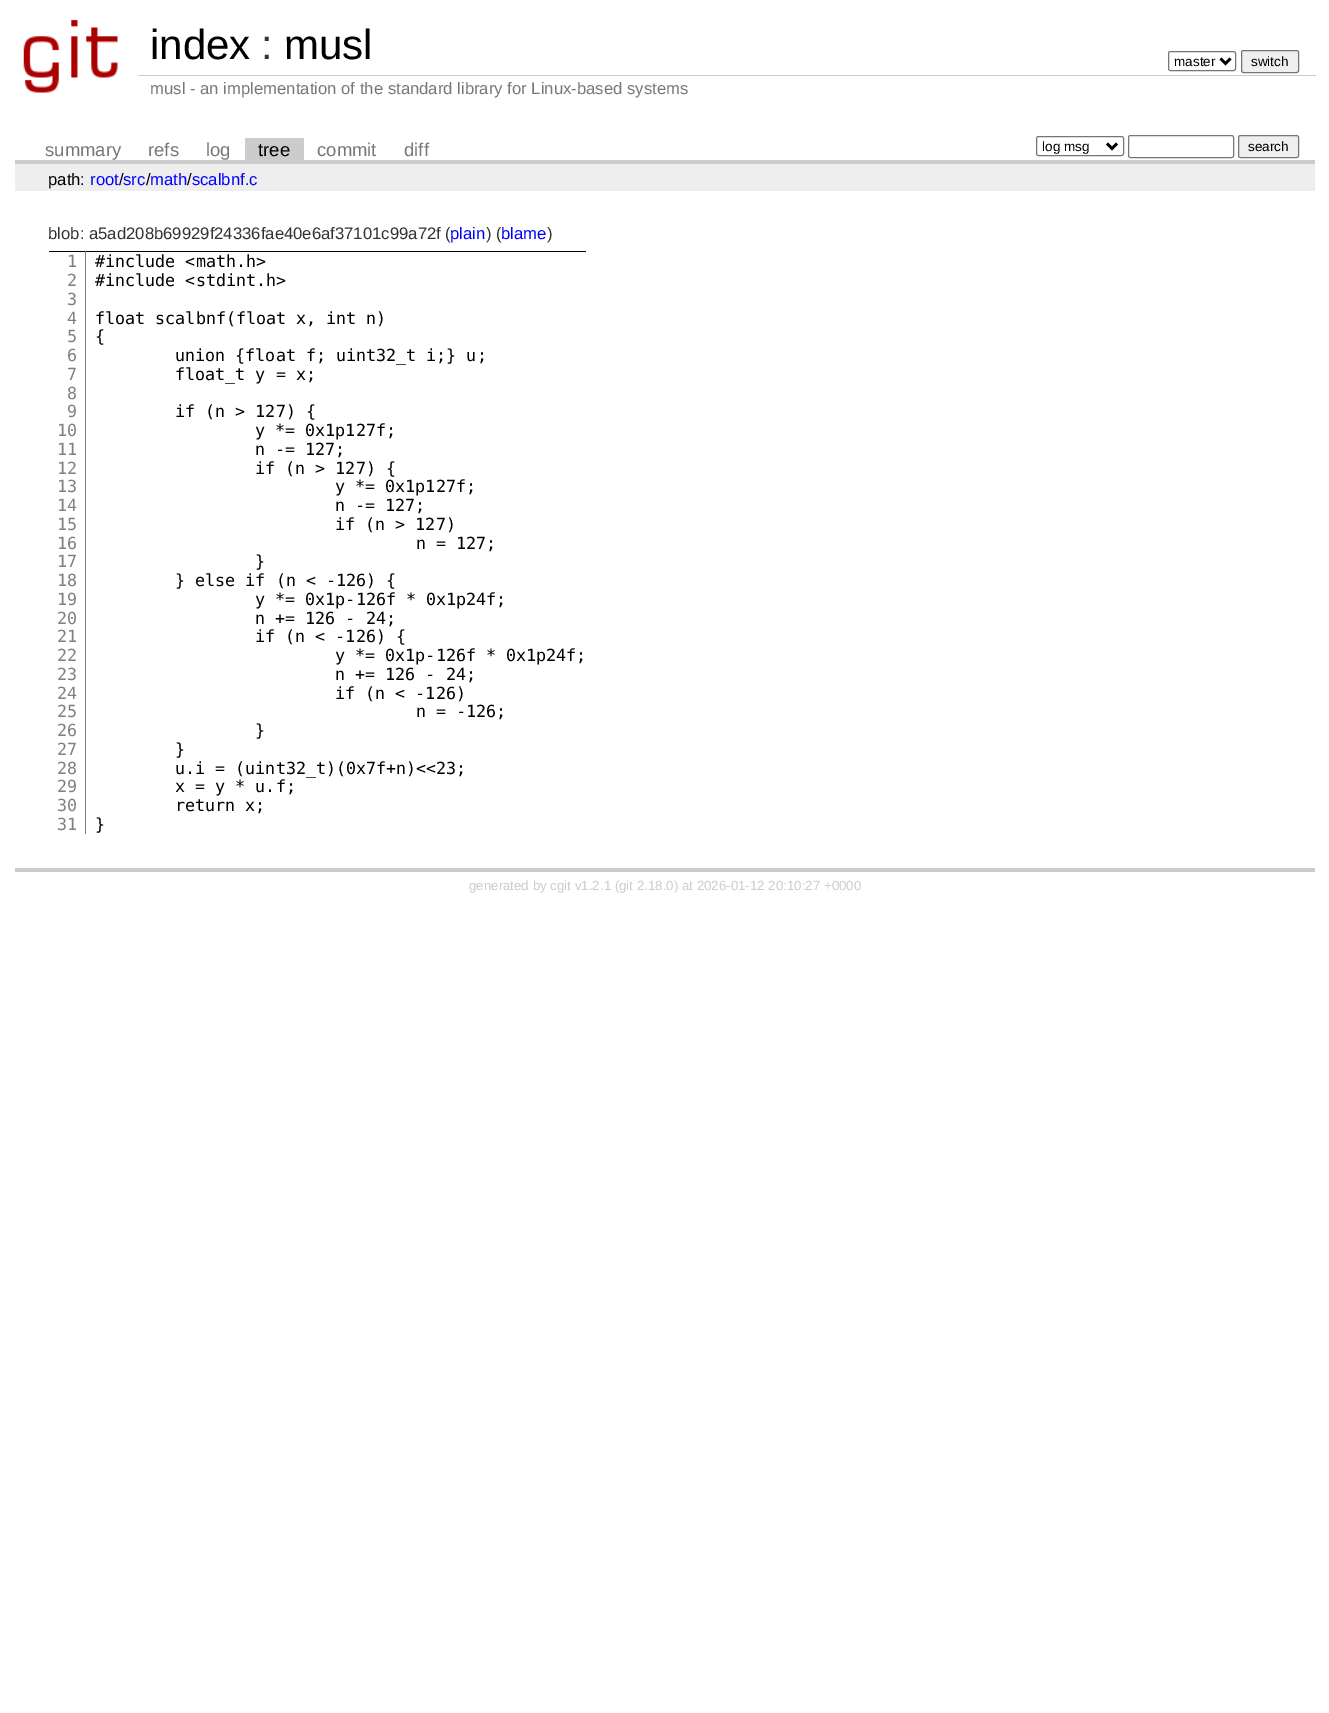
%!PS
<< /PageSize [1329 1713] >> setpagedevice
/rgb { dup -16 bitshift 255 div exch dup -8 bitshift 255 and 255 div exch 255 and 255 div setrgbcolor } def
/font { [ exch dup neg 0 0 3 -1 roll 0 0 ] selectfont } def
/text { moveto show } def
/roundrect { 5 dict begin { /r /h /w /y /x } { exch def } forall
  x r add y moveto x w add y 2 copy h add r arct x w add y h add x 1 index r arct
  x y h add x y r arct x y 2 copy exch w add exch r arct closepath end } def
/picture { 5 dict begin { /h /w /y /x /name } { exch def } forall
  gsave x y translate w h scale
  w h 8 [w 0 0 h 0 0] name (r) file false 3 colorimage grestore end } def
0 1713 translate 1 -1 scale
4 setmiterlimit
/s1 { /LiberationSans-Regular 42 font 16#000000 rgb } def
/s2 { /LiberationSans-Regular 42 font 16#333333 rgb } def
/s3 { /LiberationSans-Regular 13.5 font 16#000000 rgb } def
/s4 { /LiberationSans-Regular 16.7 font 16#777777 rgb } def
/s5 { /LiberationSans-Regular 18.5 font 16#777777 rgb } def
/s6 { /LiberationSans-Regular 18.5 font 16#000000 rgb } def
/s7 { /LiberationSans-Regular 16.7 font 16#000000 rgb } def
/s8 { /LiberationSans-Regular 16.7 font 16#0000FF rgb } def
/s9 { /LiberationSans-Regular 16.7 font 16#333333 rgb } def
/s10 { /DejaVuSansMono-Regular 16.7 font 16#808080 rgb } def
/s11 { /DejaVuSansMono-Regular 16.7 font 16#000000 rgb } def
/s12 { /LiberationSans-Regular 13.3 font 16#CCCCCC rgb } def
16#FFFFFF rgb
0 0 1329 1713 rectfill
(pic1.raw) 23 19 95 74 picture
s1
(index) 150 59 text
s2
(:) 261 59 text
s1
(musl) 284 59 text
16#767676 rgb
1168.5 51.5 67 19 2 roundrect stroke
16#000000 rgb
2.5 setlinewidth
1220.5 58.5 moveto 1225.5 63.5 lineto 1230.5 58.5 lineto stroke
s3
(master) 1174 66 text
16#EFEFEF rgb
1241.5 50.5 57 22 2 roundrect gsave fill grestore
16#767676 rgb
1 setlinewidth
stroke
s3
(switch) 1251 66 text
16#CCCCCC rgb
138 75 1178 1 rectfill
s4
(musl - an implementation of the standard library for Linux-based systems) 150 94 text
16#CCCCCC rgb
15 160 1300 4 rectfill
s5
(summary) 45 156 text
(refs) 148 156 text
(log) 206 156 text
16#CCCCCC rgb
245 138 59 22 rectfill
s6
(tree) 258 156 text
s5
(commit) 317 156 text
(diff) 404 156 text
16#767676 rgb
1036.5 136.5 87 19 2 roundrect stroke
16#000000 rgb
2.5 setlinewidth
1107 143.5 moveto 1112 148.5 lineto 1117 143.5 lineto stroke
gsave
1043 138 60 17 rectclip
s3
(log msg) 1042 151 text
grestore
16#767676 rgb
1 setlinewidth
1128.5 135.5 105 22 2 roundrect stroke
16#EFEFEF rgb
1238.5 135.5 60 22 2 roundrect gsave fill grestore
16#767676 rgb
stroke
s3
(search) 1248 151 text
16#EEEEEE rgb
15 164 1300 27 rectfill
s7
(path:) 48 185 text
s8
(root) 90 185 text
s7
(/) 119 185 text
s8
(src math scalbnf.c) 123 185 text
s7
(/) 146 185 text
(/) 187 185 text
16#CCCCCC rgb
15 868 1300 4 rectfill
s9
(blob: a5ad208b69929f24336fae40e6af37101c99a72f \() 48 239 text
s8
(plain) 450 239 text
s9
(\) \() 486 239 text
s8
(blame) 501 239 text
s9
(\)) 547 239 text
16#000000 rgb
49 251 537 1 rectfill
16#808080 rgb
85 251 1 583 rectfill
s10
(1) 67 267 text
(2) 67 286 text
(3) 67 305 text
(4) 67 324 text
(5) 67 342 text
(6) 67 361 text
(7) 67 380 text
(8) 67 399 text
(9) 67 417 text
(10) 57 436 text
(11) 57 455 text
(12) 57 474 text
(13) 57 492 text
(14) 57 511 text
(15) 57 530 text
(16) 57 549 text
(17) 57 567 text
(18) 57 586 text
(19) 57 605 text
(20) 57 624 text
(21) 57 642 text
(22) 57 661 text
(23) 57 680 text
(24) 57 699 text
(25) 57 717 text
(26) 57 736 text
(27) 57 755 text
(28) 57 774 text
(29) 57 792 text
(30) 57 811 text
(31) 57 830 text
s11
(#include <math.h>) 95 267 text
(#include <stdint.h>) 95 286 text
(float scalbnf\(float x, int n\)) 95 324 text
({) 95 342 text
(union {float f; uint32_t i;} u;) 175 361 text
(float_t y = x;) 175 380 text
(if \(n > 127\) {) 175 417 text
(y *= 0x1p127f;) 255 436 text
(n -= 127;) 255 455 text
(if \(n > 127\) {) 255 474 text
(y *= 0x1p127f;) 335 492 text
(n -= 127;) 335 511 text
(if \(n > 127\)) 335 530 text
(n = 127;) 416 549 text
(}) 255 567 text
(} else if \(n < -126\) {) 175 586 text
(y *= 0x1p-126f * 0x1p24f;) 255 605 text
(n += 126 - 24;) 255 624 text
(if \(n < -126\) {) 255 642 text
(y *= 0x1p-126f * 0x1p24f;) 335 661 text
(n += 126 - 24;) 335 680 text
(if \(n < -126\)) 335 699 text
(n = -126;) 416 717 text
(}) 255 736 text
(}) 175 755 text
(u.i = \(uint32_t\)\(0x7f+n\)<<23;) 175 774 text
(x = y * u.f;) 175 792 text
(return x;) 175 811 text
(}) 95 830 text
s12
(generated by cgit v1.2.1 \(git 2.18.0\) at 2026-01-12 20:10:27 +0000) 469 890 text
showpage
